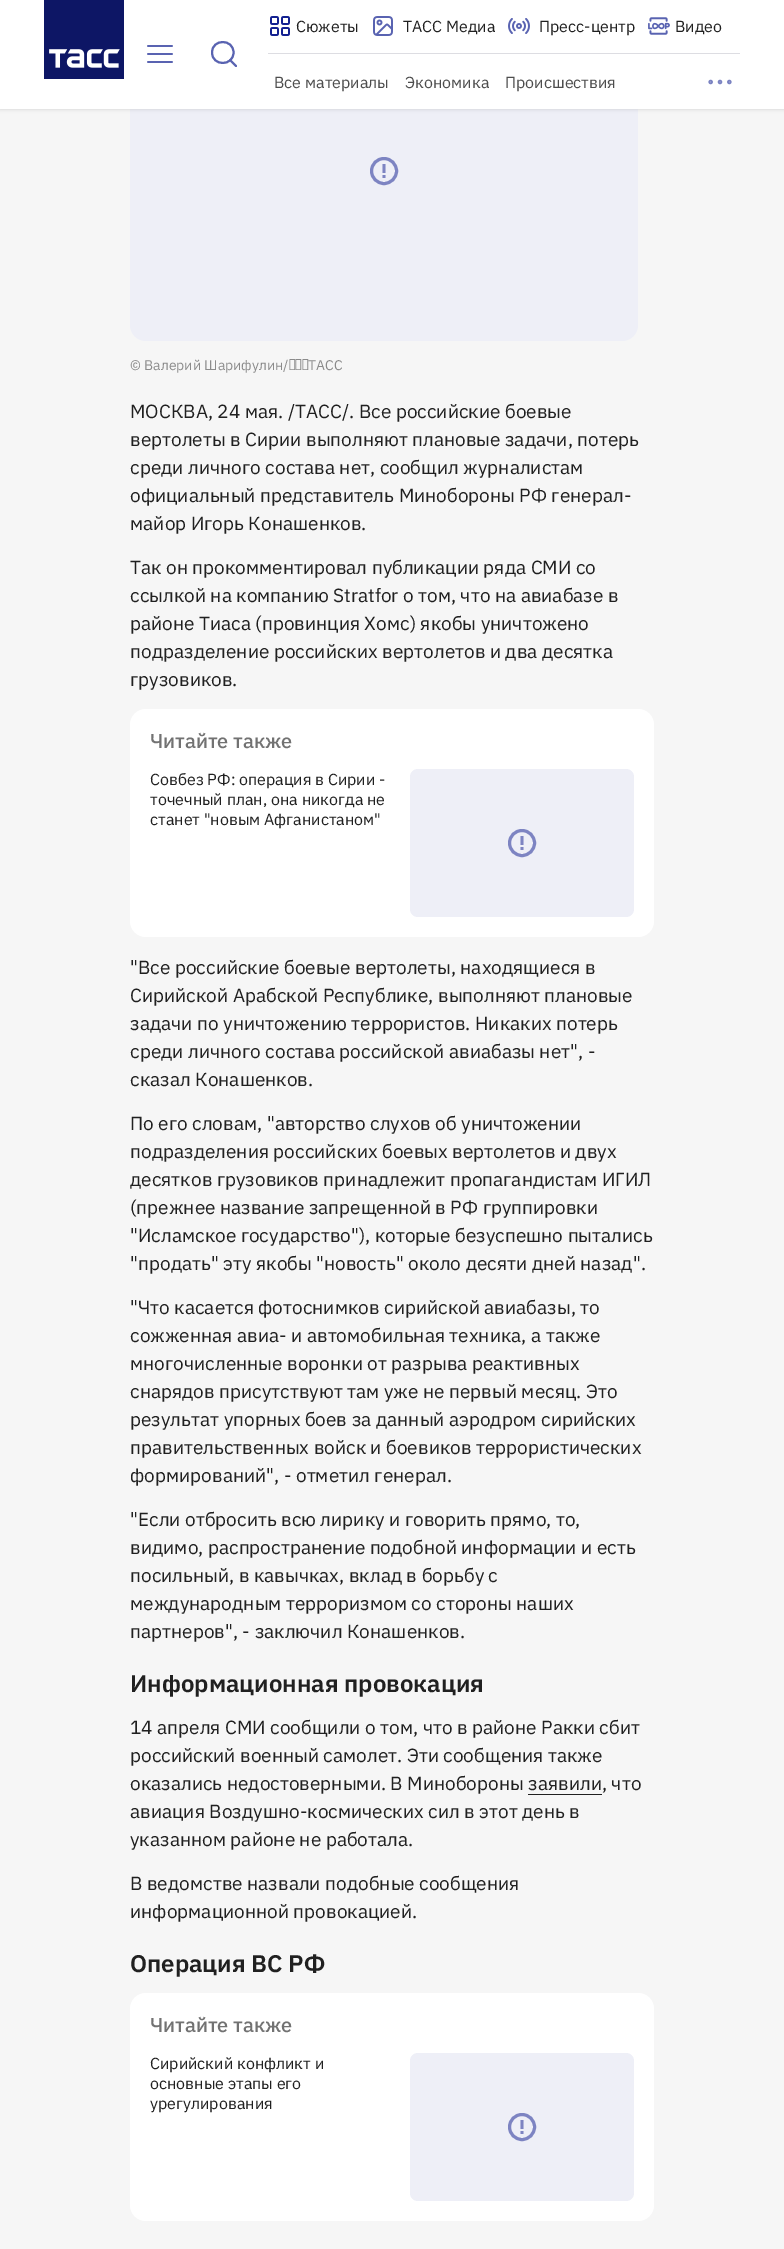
%!PS
<< /PageSize [784 2249] /PageUsesTransparency true >> setpagedevice
/rgb { dup -16 bitshift 255 div exch dup -8 bitshift 255 and 255 div exch 255 and 255 div setrgbcolor } def
/font { [ exch dup neg 0 0 3 -1 roll 0 0 ] selectfont } def
/text { moveto show } def
/alpha { dup .setfillconstantalpha .setstrokeconstantalpha } def
/circle { newpath 0 360 arc closepath } def
/roundrect { 5 dict begin { /r /h /w /y /x } { exch def } forall
  x r add y moveto x w add y 2 copy h add r arct x w add y h add x 1 index r arct
  x y h add x y r arct x y 2 copy exch w add exch r arct closepath end } def
/shadow { 12 dict begin { /a /b /q /h /w /y /x } { exch def } forall gsave /was 0 def
  9 -2 -9 { dup b mul 4 div /e exch def 1 sub .425 mul 2.718 exch exp 1 add a .99 .min exch div /now exch def
    1 1 now sub 1 was sub div sub alpha /was now def
    w h .min e 2 mul add 0 gt { x e sub y e sub w e 2 mul add h e 2 mul add
      q e add b .6 mul add w h .min 2 div e add .min 0 .max roundrect fill } if } for grestore end } def
/picture { 5 dict begin { /h /w /y /x /name } { exch def } forall
  gsave x y translate w h scale
  w h 8 [w 0 0 h 0 0] name (r) file false 3 colorimage grestore end } def
0 .pushpdf14devicefilter
0 2249 translate 1 -1 scale
4 setmiterlimit
/s1 { /IBMPlexSans-Regular 16 font 16#202020 rgb } def
/s2 { /IBMPlexSans-Regular 16 font 16#4D4D4D rgb } def
/s3 { /IBMPlexSans-Regular 14 font 16#8B8B8B rgb } def
/s4 { /IBMPlexSans-Regular 19 font 16#202020 rgb } def
/s5 { /IBMPlexSans-Medium 20 font 16#727272 rgb } def
/s6 { /IBMPlexSans-SemiBold 24 font 16#202020 rgb } def
16#F6F6F6 rgb
0 0 784 2249 rectfill
16#EEEFF7 rgb
130 1 508 340 16 roundrect fill
16#000000 rgb
0 -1 784 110 0 2 0.16 shadow
16#FFFFFF rgb
0 0 784 109 rectfill
(pic1.raw) 44 0 80 79 picture
16#DDDDE2 rgb
268 53 472 1 rectfill
(pic2.raw) 270 16 20 20 picture
s1
(Сюжеты) 296 32 text
(pic3.raw) 373 16 20 20 picture
(ТАСС Медиа) 403 32 text
(pic4.raw) 508 18 22 16 picture
(Пресс-центр) 539 32 text
(pic5.raw) 648 17 22 18 picture
(Видео) 675 32 text
(pic6.raw) 147 45 26 18 picture
16#5963B1 rgb
2 setlinewidth
1 setlinecap
1 setlinejoin
236 66 moveto 230 60 lineto 233.5 52.5 moveto 233.5 66.5 212 66.5 212 52.5 curveto 212 38.5 233.5 38.5 233.5 52.5 curveto stroke
s2
(Все материалы) 274 88 text
(Экономика) 405 88 text
(Происшествия) 505 88 text
(pic7.raw) 708 79 24 6 picture
16#7D84C2 rgb
3 setlinewidth
0 setlinecap
0 setlinejoin
384 171 12.5 circle stroke
382.5 164 moveto 385.5 164 lineto 385.5 173 lineto 382.5 173 lineto closepath 382.5 175 moveto 385.5 175 lineto 385.5 178 lineto 382.5 178 lineto closepath fill
s3
(© Валерий Шарифулин/ ТАСС) 130 370 text
s4
(МОСКВА, 24 мая. /ТАСС/. Все российские боевые) 130 418 text
(вертолеты в Сирии выполняют плановые задачи, потерь) 130 446 text
(среди личного состава нет, сообщил журналистам) 130 474 text
(официальный представитель Минобороны РФ генерал-) 130 502 text
(майор Игорь Конашенков.) 130 530 text
(Так он прокомментировал публикации ряда СМИ со) 130 574 text
(ссылкой на компанию Stratfor о том, что на авиабазе в) 130 602 text
(районе Тиаса \(провинция Хомс\) якобы уничтожено) 130 630 text
(подразделение российских вертолетов и два десятка) 130 658 text
(грузовиков.) 130 686 text
16#FFFFFF rgb
130 709 524 228 16 roundrect fill
s5
(Читайте также) 150 748 text
s1
(Совбез РФ: операция в Сирии -) 150 785 text
(точечный план, она никогда не) 150 805 text
(станет "новым Афганистаном") 150 825 text
16#EEEFF7 rgb
410 769 224 148 8 roundrect fill
16#7D84C2 rgb
522 843 12.5 circle stroke
520.5 836 moveto 523.5 836 lineto 523.5 845 lineto 520.5 845 lineto closepath 520.5 847 moveto 523.5 847 lineto 523.5 850 lineto 520.5 850 lineto closepath fill
s4
("Все российские боевые вертолеты, находящиеся в) 130 974 text
(Сирийской Арабской Республике, выполняют плановые) 130 1002 text
(задачи по уничтожению террористов. Никаких потерь) 130 1030 text
(среди личного состава российской авиабазы нет", -) 130 1058 text
(сказал Конашенков.) 130 1086 text
(По его словам, "авторство слухов об уничтожении) 130 1130 text
(подразделения российских боевых вертолетов и двух) 130 1158 text
(десятков грузовиков принадлежит пропагандистам ИГИЛ) 130 1186 text
(\(прежнее название запрещенной в РФ группировки) 130 1214 text
("Исламское государство"\), которые безуспешно пытались) 130 1242 text
("продать" эту якобы "новость" около десяти дней назад".) 130 1270 text
("Что касается фотоснимков сирийской авиабазы, то) 130 1314 text
(сожженная авиа- и автомобильная техника, а также) 130 1342 text
(многочисленные воронки от разрыва реактивных) 130 1370 text
(снарядов присутствуют там уже не первый месяц. Это) 130 1398 text
(результат упорных боев за данный аэродром сирийских) 130 1426 text
(правительственных войск и боевиков террористических) 130 1454 text
(формирований", - отметил генерал.) 130 1482 text
("Если отбросить всю лирику и говорить прямо, то,) 130 1526 text
(видимо, распространение подобной информации и есть) 130 1554 text
(посильный, в кавычках, вклад в борьбу с) 130 1582 text
(международным терроризмом со стороны наших) 130 1610 text
(партнеров", - заключил Конашенков.) 130 1638 text
s6
(Информационная провокация) 130 1692 text
s4
(14 апреля СМИ сообщили о том, что в районе Ракки сбит) 130 1734 text
(российский военный самолет. Эти сообщения также) 130 1762 text
(оказались недостоверными. В Минобороны заявили, что) 130 1790 text
528 1794 74 1 rectfill
(авиация Воздушно-космических сил в этот день в) 130 1818 text
(указанном районе не работала.) 130 1846 text
(В ведомстве назвали подобные сообщения) 130 1890 text
(информационной провокацией.) 130 1918 text
s6
(Операция ВС РФ) 130 1972 text
16#FFFFFF rgb
130 1993 524 228 16 roundrect fill
s5
(Читайте также) 150 2032 text
s1
(Сирийский конфликт и) 150 2069 text
(основные этапы его) 150 2089 text
(урегулирования) 150 2109 text
16#EEEFF7 rgb
410 2053 224 148 8 roundrect fill
16#7D84C2 rgb
522 2127 12.5 circle stroke
520.5 2120 moveto 523.5 2120 lineto 523.5 2129 lineto 520.5 2129 lineto closepath 520.5 2131 moveto 523.5 2131 lineto 523.5 2134 lineto 520.5 2134 lineto closepath fill
.poppdf14devicefilter showpage
